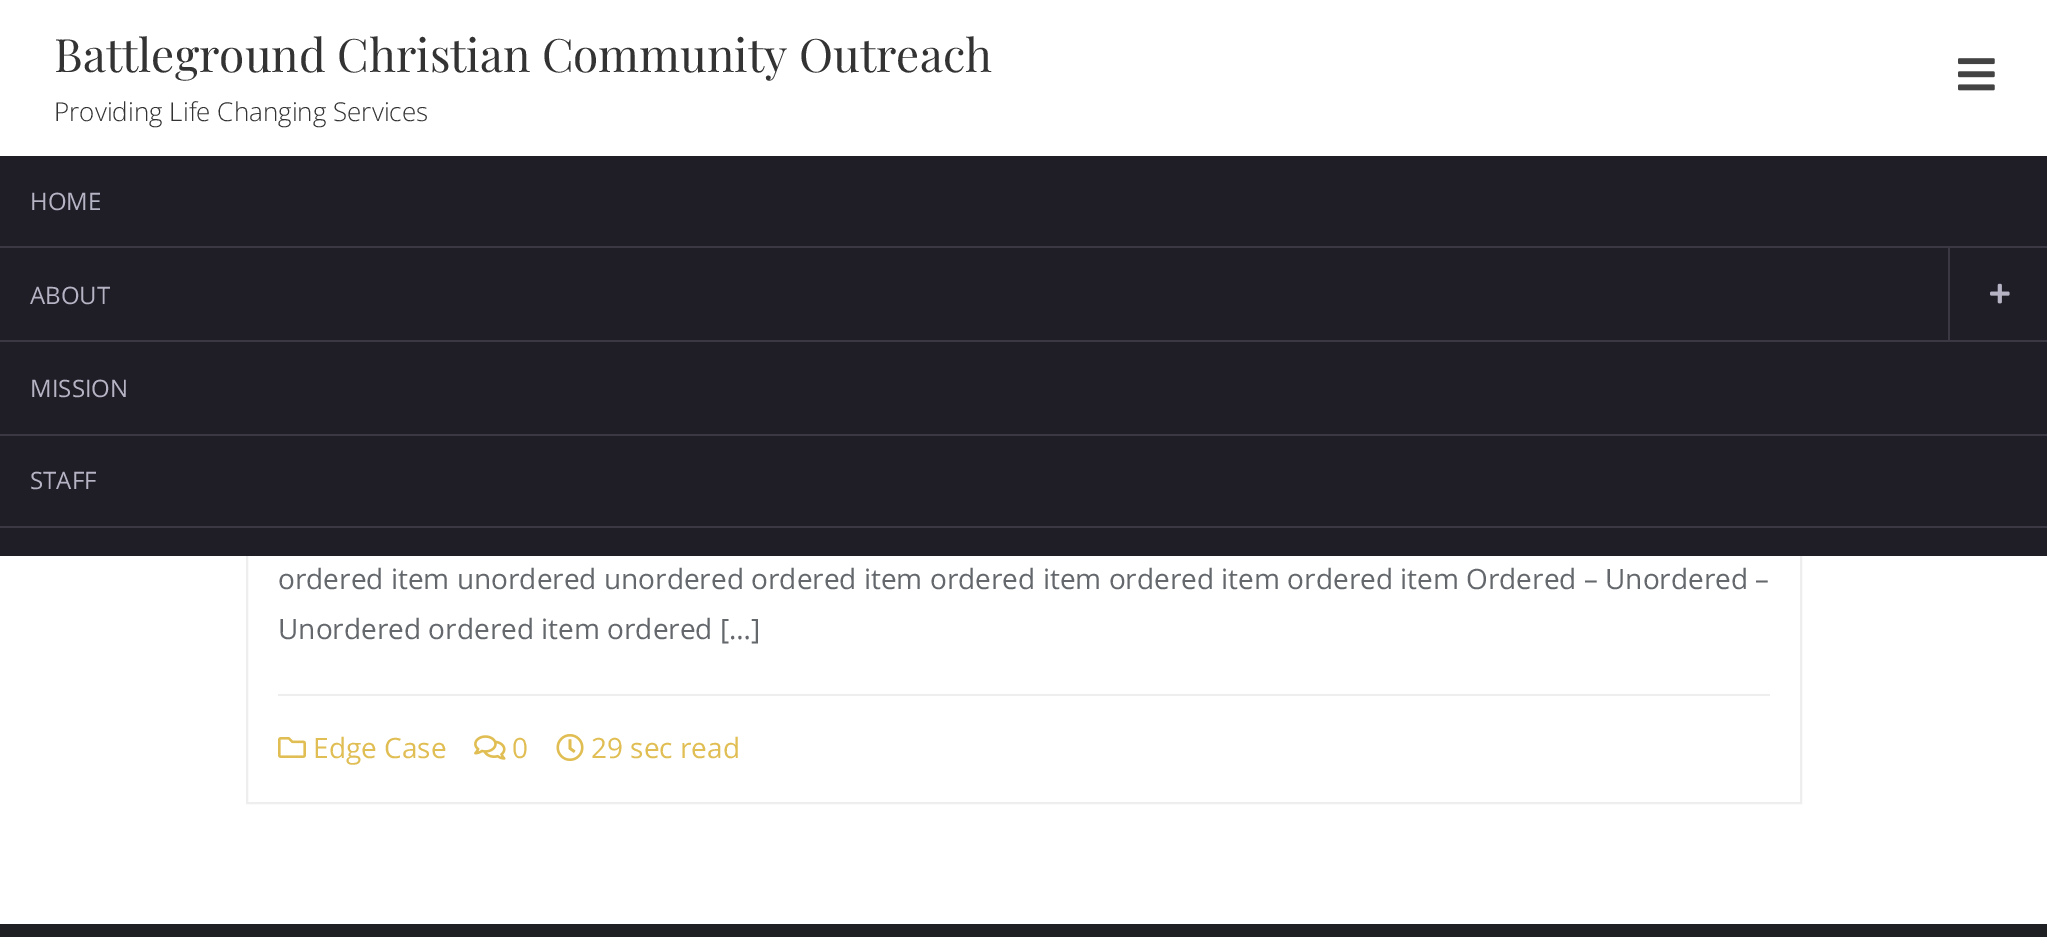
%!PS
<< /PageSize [2047 937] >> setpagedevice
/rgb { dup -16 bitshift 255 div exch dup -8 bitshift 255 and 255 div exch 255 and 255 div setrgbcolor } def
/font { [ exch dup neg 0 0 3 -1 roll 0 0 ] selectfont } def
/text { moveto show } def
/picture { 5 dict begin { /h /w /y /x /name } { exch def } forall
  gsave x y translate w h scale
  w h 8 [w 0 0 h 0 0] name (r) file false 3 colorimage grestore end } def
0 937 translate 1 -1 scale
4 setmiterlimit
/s1 { /PlayfairDisplay-Regular 46 font 16#333333 rgb } def
/s2 { /OpenSans-Light 26 font 16#333333 rgb } def
/s3 { /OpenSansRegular-Regular 24 font 16#B6B3C4 rgb } def
/s4 { /OpenSansRegular-Regular 28 font 16#64686D rgb } def
/s5 { /OpenSansRegular-Regular 28 font 16#E0BE53 rgb } def
16#FFFFFF rgb
0 0 2047 937 rectfill
s1
(Battleground Christian Community Outreach) 54 72 text
s2
(Providing Life Changing Services) 54 121 text
(pic1.raw) 1958 58 37 33 picture
16#EEEEEE rgb
2 setlinewidth
247 269 1554 534 rectstroke
16#1F1D26 rgb
0 156 2047 400 rectfill
16#3B3844 rgb
0 246 2047 2 rectfill
s3
(HOME) 30 210 text
16#3B3844 rgb
0 340 2047 2 rectfill
s3
(ABOUT) 30 304 text
16#3B3844 rgb
1948 248 2 92 rectfill
(pic2.raw) 1990 283 20 21 picture
0 434 2047 2 rectfill
s3
(MISSION) 30 397 text
16#3B3844 rgb
0 526 2047 2 rectfill
s3
(STAFF) 30 489 text
s4
(ordered item unordered unordered ordered item ordered item ordered item ordered item Ordered – Unordered –) 278 589 text
(Unordered ordered item ordered […]) 278 639 text
16#EEEEEE rgb
278 694 1492 2 rectfill
(pic3.raw) 278 737 28 21 picture
s5
(Edge Case) 313 758 text
(pic4.raw) 474 735 32 25 picture
(0) 512 758 text
(pic5.raw) 556 734 28 27 picture
(29 sec read) 591 758 text
16#1F2024 rgb
0 924 2047 13 rectfill
showpage
